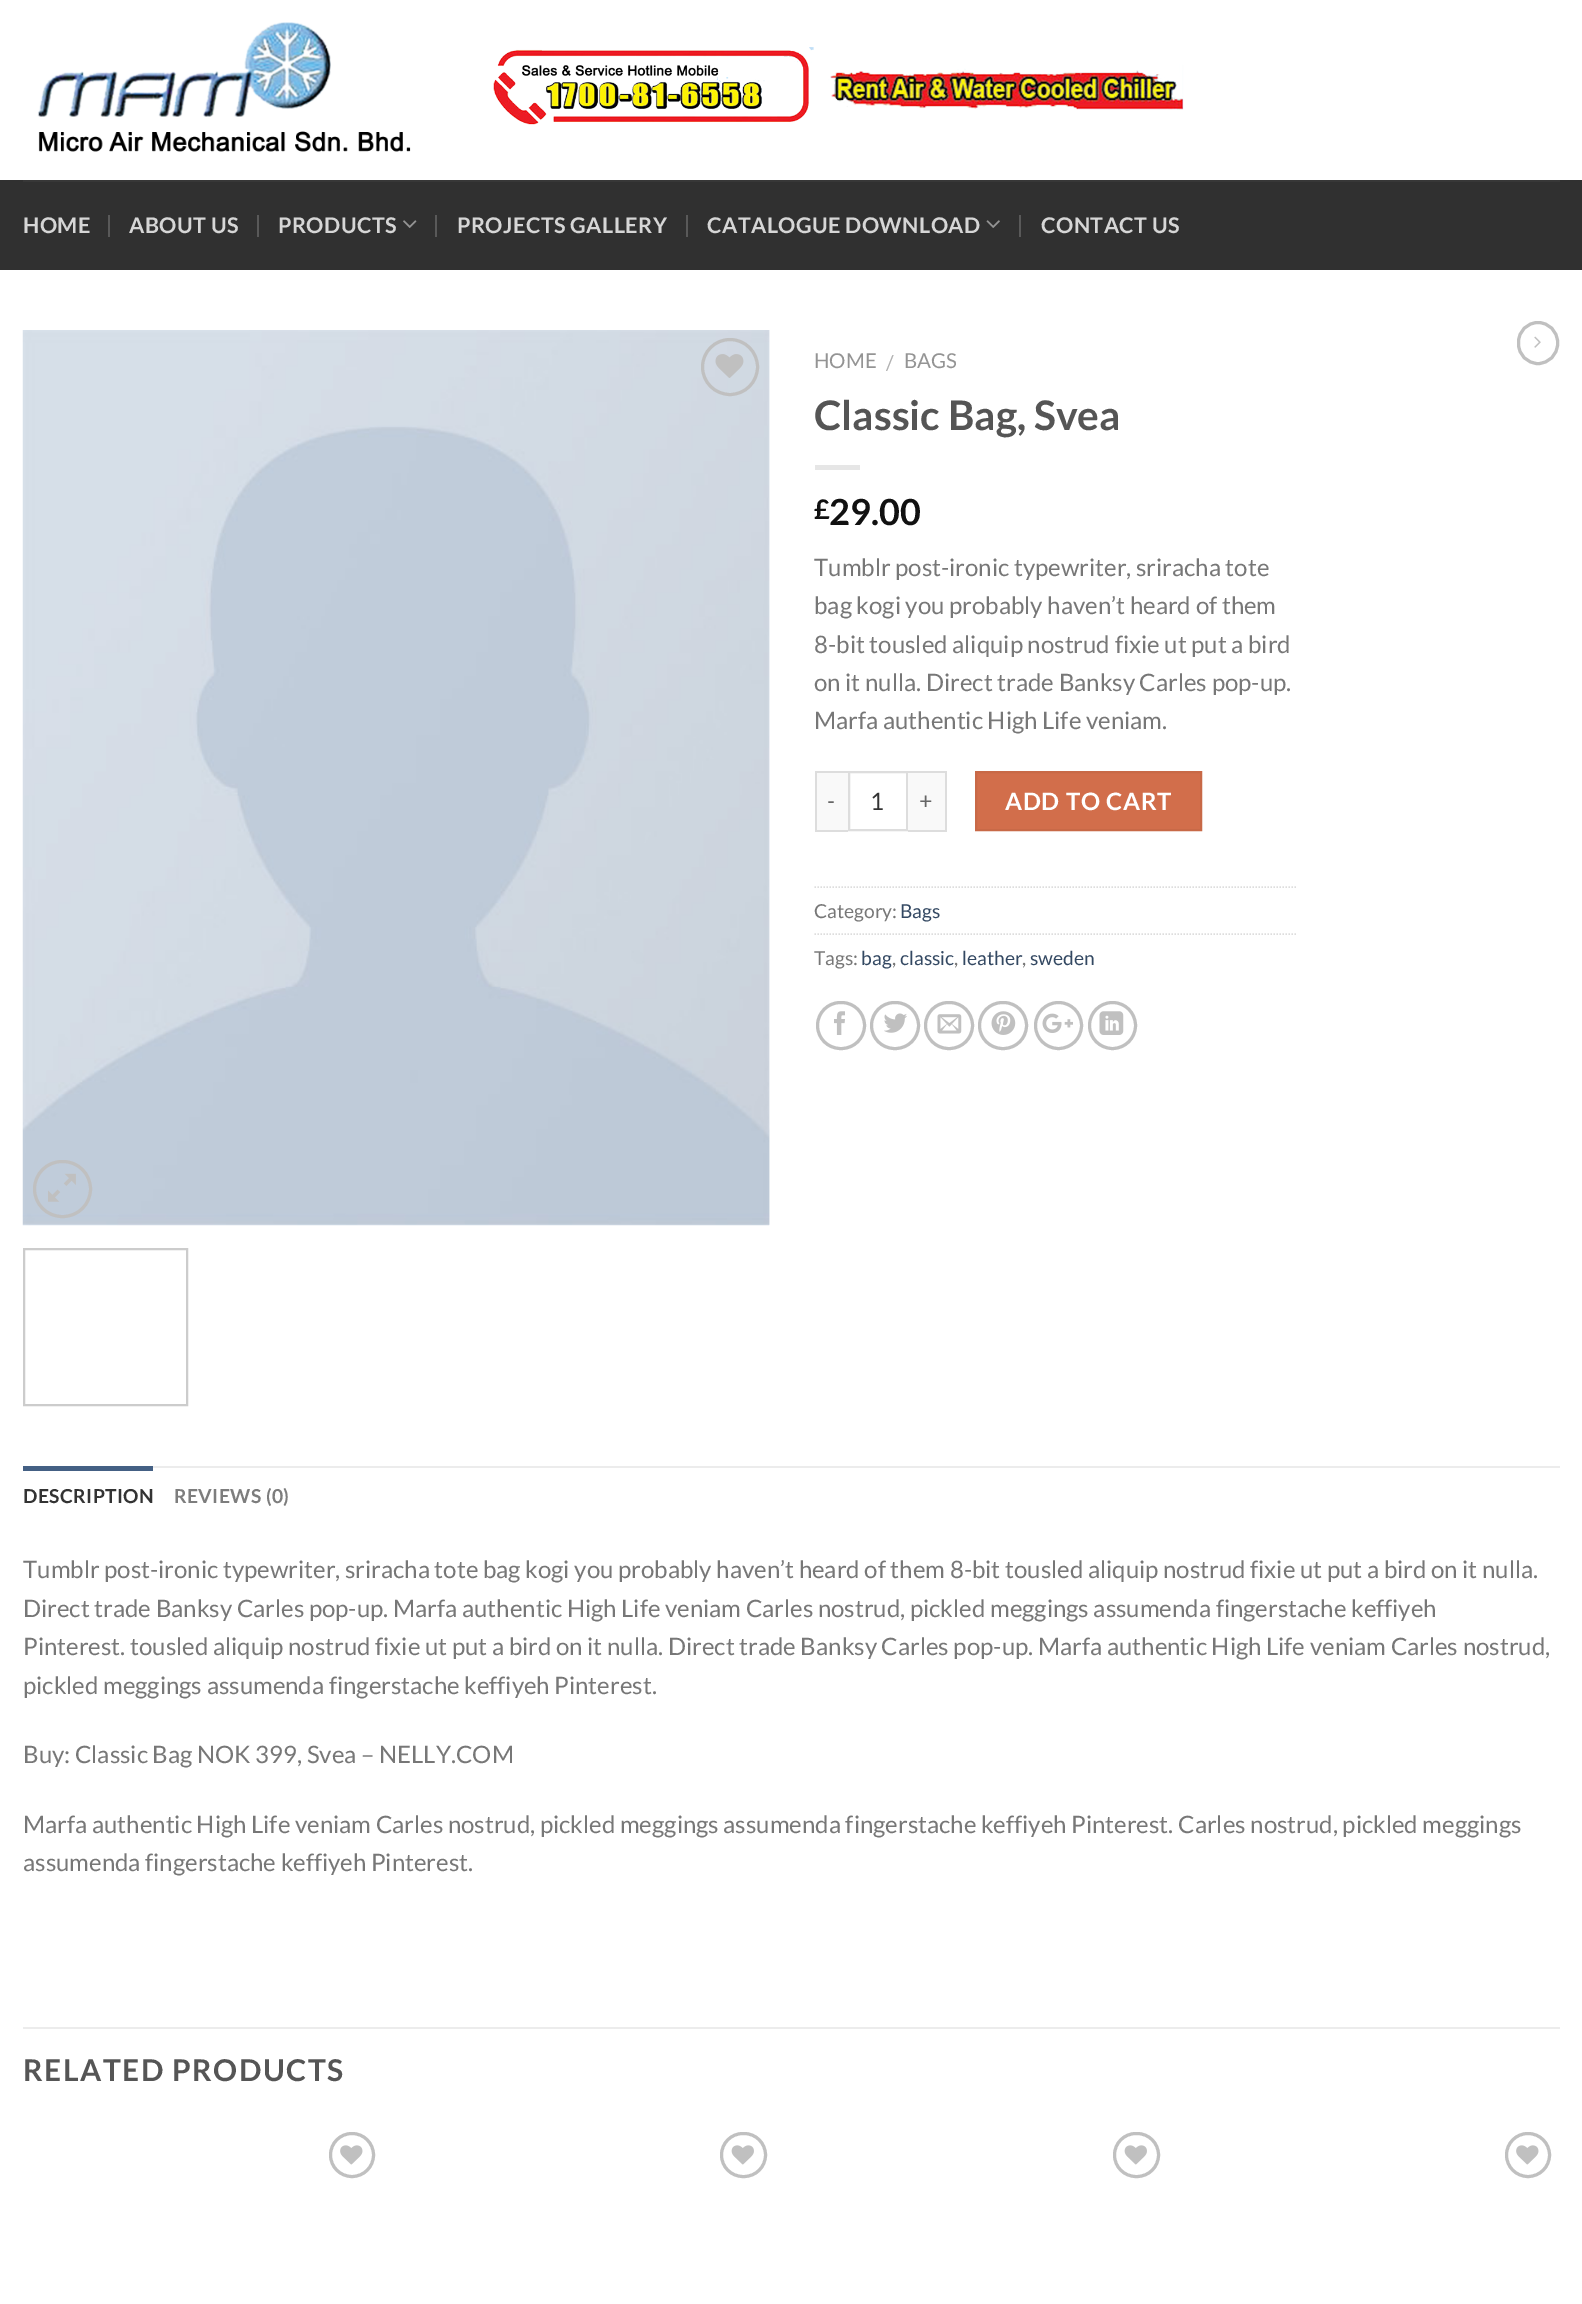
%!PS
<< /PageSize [1582 2304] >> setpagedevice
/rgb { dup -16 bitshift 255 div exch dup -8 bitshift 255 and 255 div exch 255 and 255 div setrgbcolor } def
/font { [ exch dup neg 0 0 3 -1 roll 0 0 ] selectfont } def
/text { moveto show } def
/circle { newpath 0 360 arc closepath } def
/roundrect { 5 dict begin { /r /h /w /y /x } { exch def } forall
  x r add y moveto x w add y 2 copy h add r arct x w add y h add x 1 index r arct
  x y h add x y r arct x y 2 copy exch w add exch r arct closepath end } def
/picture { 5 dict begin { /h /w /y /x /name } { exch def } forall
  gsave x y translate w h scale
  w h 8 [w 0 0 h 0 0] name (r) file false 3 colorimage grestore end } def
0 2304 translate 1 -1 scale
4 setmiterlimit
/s1 { /Lato-Regular 20.5 font 16#949494 rgb } def
/s2 { /Lato-Regular 20.5 font 16#B2B2B2 rgb } def
/s3 { /Lato-Bold 40.75 font 16#555555 rgb } def
/s4 { /Lato-Bold 27 font 16#111111 rgb } def
/s5 { /Lato-Bold 36 font 16#111111 rgb } def
/s6 { /Lato-Regular 24 font 16#777777 rgb } def
/s7 { /Lato-Regular 24 font 16#333333 rgb } def
/s8 { /Lato-Regular 19.25 font 16#777777 rgb } def
/s9 { /Lato-Regular 19.25 font 16#334862 rgb } def
16#FFFFFF rgb
0 0 1582 2304 rectfill
(pic1.raw) 37 22 374 130 picture
(pic2.raw) 493 47 691 78 picture
16#303030 rgb
0 180 1582 90 rectfill
16#373737 rgb
23 180 1537 2 rectfill
/Lato-Bold 21.6 font
16#D6D6D6 rgb
23 233 moveto 0.4 0 (HOME) ashow
16#595959 rgb
108 215 2 22 rectfill
16#D6D6D6 rgb
129 233 moveto 0.4 0 (ABOUT US) ashow
16#595959 rgb
257 215 2 22 rectfill
16#D6D6D6 rgb
278 233 moveto 0.4 0 (PRODUCTS) ashow
(pic3.raw) 403 220 14 8 picture
16#595959 rgb
435 215 2 22 rectfill
16#D6D6D6 rgb
457 233 moveto 0.4 0 (PROJECTS GALLERY) ashow
16#595959 rgb
686 215 2 22 rectfill
16#D6D6D6 rgb
707 233 moveto 0.4 0 (CATALOGUE DOWNLOAD) ashow
(pic4.raw) 986 220 14 8 picture
16#595959 rgb
1019 215 2 22 rectfill
16#D6D6D6 rgb
1041 233 moveto 0.4 0 (CONTACT US) ashow
(pic5.raw) 22 330 748 896 picture
(pic6.raw) 769 330 1 895 picture
16#C0C0C0 rgb
3 setlinewidth
730 367 27.5 circle stroke
(pic7.raw) 715 354 29 24 picture
34.5 1161.5 56 55 27.5 roundrect stroke
(pic8.raw) 48 1173 28 29 picture
16#CCCCCC rgb
2 setlinewidth
24 1249 163 156 rectstroke
s1
(HOME) 814 368 text
s2
(/) 886 370 text
s1
(BAGS) 904 368 text
s3
(Classic Bag, Svea) 814 430 text
16#E6E6E6 rgb
815 465 45 5 rectfill
s4
(£) 814 519 text
s5
(29.00) 829 525 text
s6
(Tumblr post-ironic typewriter, sriracha tote) 814 576 text
(bag kogi you probably haven’t heard of them) 814 614 text
(8-bit tousled aliquip nostrud fixie ut put a bird) 814 653 text
(on it nulla. Direct trade Banksy Carles pop-up.) 814 691 text
(Marfa authentic High Life veniam.) 814 729 text
16#F9F9F9 rgb
817 773 31 57 rectfill
16#DDDDDD rgb
815 771 33 2 rectfill
815 830 33 2 rectfill
815 771 2 60 rectfill
/Lato-Regular 23 font
16#666666 rgb
827 809 moveto 1 0 (-) ashow
16#DDDDDD rgb
849 772 58 58 rectstroke
s7
(1) 870 810 text
16#F9F9F9 rgb
908 773 37 57 rectfill
16#DDDDDD rgb
908 771 39 2 rectfill
945 771 2 60 rectfill
908 830 39 2 rectfill
/Lato-Regular 23 font
16#666666 rgb
919 809 moveto 1 0 (+) ashow
16#D26E4B rgb
976 772 moveto 1201 772 lineto 1201 830 lineto 976 830 lineto closepath gsave fill grestore
16#C86947 rgb
stroke
/Lato-Bold 24 font
16#FFFFFF rgb
1005 810 moveto 0.75 0 (ADD TO CART) ashow
16#DDDDDD rgb
1.5 setlinewidth
[1.5 1.5] 0 setdash
814.5 887 moveto 1296 887 lineto stroke
s8
(Category:) 814 918 text
s9
(Bags) 900 918 text
16#DDDDDD rgb
814.5 934 moveto 1296 934 lineto stroke
s8
(Tags:) 814 965 text
s9
(bag) 861 965 text
s8
(,) 892 965 text
s9
(classic) 900 965 text
s8
(,) 954 965 text
s9
(leather) 962 965 text
s8
(,) 1022 965 text
s9
(sweden) 1030 965 text
16#C0C0C0 rgb
3 setlinewidth
[] 0 setdash
817.5 1002.5 47 46 23 roundrect stroke
(pic9.raw) 834 1011 11 24 picture
871.5 1002.5 47 46 23 roundrect stroke
(pic10.raw) 884 1013 23 20 picture
925.5 1002.5 47 46 23 roundrect stroke
(pic11.raw) 937 1014 25 20 picture
979.5 1002.5 47 46 23 roundrect stroke
(pic12.raw) 991 1011 25 24 picture
1058.5 1025.5 23 circle stroke
(pic13.raw) 1042 1013 31 20 picture
1112.5 1025.5 23 circle stroke
(pic14.raw) 1099 1011 25 24 picture
1518.5 322.5 39 41 19.5 roundrect stroke
(pic15.raw) 1534 336 7 12 picture
16#ECECEC rgb
153 1466 1407 2 rectfill
16#446084 rgb
23 1466 130 5 rectfill
/Lato-Bold 19.25 font
16#333333 rgb
23 1503 moveto 0.4 0 (DESCRIPTION) ashow
16#7D7D7D rgb
174 1503 moveto 0.4 0 (REVIEWS \(0\)) ashow
s6
(Tumblr post-ironic typewriter, sriracha tote bag kogi you probably haven’t heard of them 8-bit tousled aliquip nostrud fixie ut put a bird on it nulla.) 23 1578 text
(Direct trade Banksy Carles pop-up. Marfa authentic High Life veniam Carles nostrud, pickled meggings assumenda fingerstache keffiyeh) 23 1617 text
(Pinterest. tousled aliquip nostrud fixie ut put a bird on it nulla. Direct trade Banksy Carles pop-up. Marfa authentic High Life veniam Carles nostrud,) 23 1655 text
(pickled meggings assumenda fingerstache keffiyeh Pinterest.) 23 1694 text
(Buy: Classic Bag NOK 399, Svea – NELLY.COM) 23 1763 text
(Marfa authentic High Life veniam Carles nostrud, pickled meggings assumenda fingerstache keffiyeh Pinterest. Carles nostrud, pickled meggings) 23 1833 text
(assumenda fingerstache keffiyeh Pinterest.) 23 1871 text
16#ECECEC rgb
23 2027 1537 2 rectfill
/Lato-Bold 30 font
16#555555 rgb
23 2081 moveto 1.5 0 (RELATED PRODUCTS) ashow
16#C0C0C0 rgb
352 2155 21.5 circle stroke
(pic16.raw) 340 2145 23 20 picture
721.5 2133.5 44 43 21.5 roundrect stroke
(pic17.raw) 731 2145 23 20 picture
1114.5 2133.5 44 43 21.5 roundrect stroke
(pic17.raw) 1124 2145 23 20 picture
1528 2155 21.5 circle stroke
(pic16.raw) 1516 2145 23 20 picture
showpage
